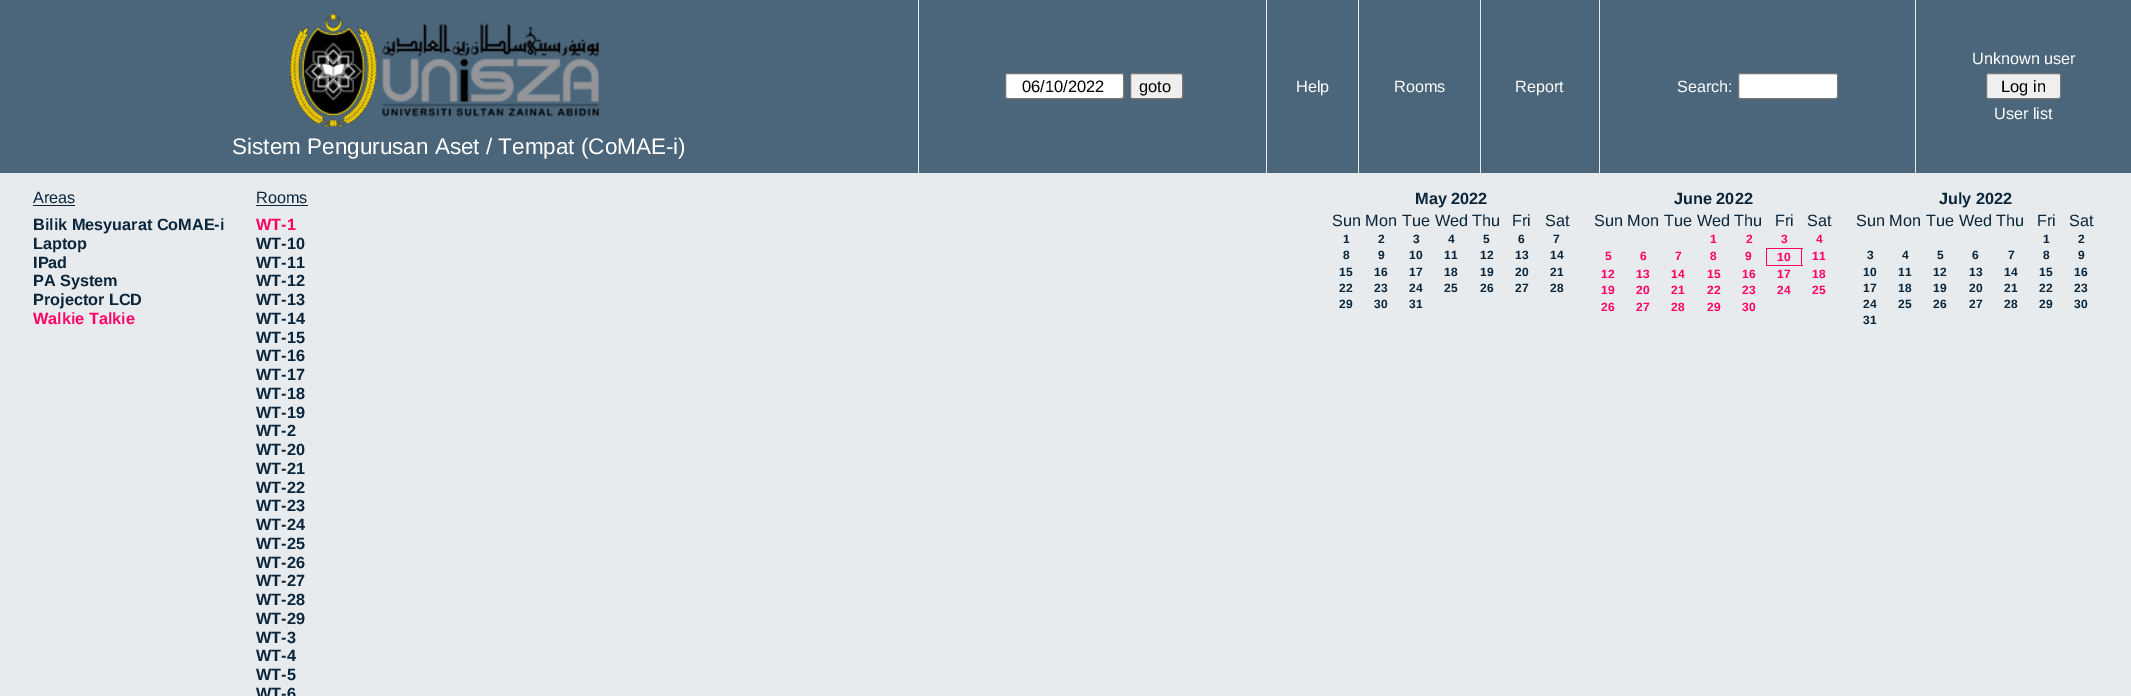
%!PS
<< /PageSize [2131 696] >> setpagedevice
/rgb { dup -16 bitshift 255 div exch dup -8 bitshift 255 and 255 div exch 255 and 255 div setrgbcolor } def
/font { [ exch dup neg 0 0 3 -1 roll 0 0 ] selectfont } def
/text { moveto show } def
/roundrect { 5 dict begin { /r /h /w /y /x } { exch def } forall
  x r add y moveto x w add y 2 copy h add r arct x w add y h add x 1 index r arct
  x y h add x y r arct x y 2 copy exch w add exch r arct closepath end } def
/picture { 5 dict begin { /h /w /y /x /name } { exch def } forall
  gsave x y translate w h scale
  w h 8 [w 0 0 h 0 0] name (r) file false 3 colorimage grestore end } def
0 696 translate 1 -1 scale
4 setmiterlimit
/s1 { /LiberationSans-Regular 16.5 font 16#000000 rgb } def
/s2 { /LiberationSans-Regular 16.25 font 16#FFFFFF rgb } def
/s3 { /LiberationSans-Regular 22.5 font 16#FFFFFF rgb } def
/s4 { /LiberationSans-Regular 16.25 font 16#0B263B rgb } def
/s5 { /LiberationSans-Bold 16.25 font 16#0B263B rgb } def
/s6 { /LiberationSans-Bold 16.25 font 16#FF0066 rgb } def
/s7 { /LiberationSans-Bold 12 font 16#0B263B rgb } def
/s8 { /LiberationSans-Bold 12 font 16#FF0066 rgb } def
16#E7EBEE rgb
0 0 2131 696 rectfill
16#4B667B rgb
0 0 2131 173 rectfill
16#E7EBEE rgb
918 0 1 173 rectfill
16#FFFFFF rgb
1005.5 73.5 118 25 2 roundrect gsave fill grestore
16#767676 rgb
stroke
s1
(06/10/2022) 1022 92 text
16#EFEFEF rgb
1130.5 73.5 52 25 2 roundrect gsave fill grestore
16#767676 rgb
stroke
s1
(goto) 1139 92 text
16#E7EBEE rgb
1266 0 1 173 rectfill
s2
(Help) 1296 92 text
16#E7EBEE rgb
1358 0 1 173 rectfill
s2
(Rooms) 1394 92 text
16#E7EBEE rgb
1480 0 1 173 rectfill
s2
(Report) 1515 92 text
16#E7EBEE rgb
1599 0 1 173 rectfill
s2
(Search:) 1677 92 text
1738.5 73.5 99 25 2 roundrect gsave fill grestore
16#767676 rgb
stroke
16#E7EBEE rgb
1915 0 1 173 rectfill
s2
(Unknown user) 1972 64 text
16#EFEFEF rgb
1986.5 73.5 74 25 2 roundrect gsave fill grestore
16#767676 rgb
stroke
s1
(Log in) 2001 92 text
s2
(User list) 1994 119 text
(pic1.raw) 289 11 310 116 picture
s3
(Sistem Pengurusan Aset / Tempat \(CoMAE-i\)) 232 154 text
s4
(Areas) 33 203 text
33 205 42 1 rectfill
s5
(Bilik Mesyuarat CoMAE-i) 33 230 text
(Laptop) 33 249 text
(IPad) 33 268 text
(PA System) 33 286 text
(Projector LCD) 33 305 text
s6
(Walkie Talkie) 33 324 text
s4
(Rooms) 256 203 text
256 205 52 1 rectfill
s6
(WT-1) 256 230 text
s5
(WT-10) 256 249 text
(WT-11) 256 268 text
(WT-12) 256 286 text
(WT-13) 256 305 text
(WT-14) 256 324 text
(WT-15) 256 343 text
(WT-16) 256 361 text
(WT-17) 256 380 text
(WT-18) 256 399 text
(WT-19) 256 418 text
(WT-2) 256 436 text
(WT-20) 256 455 text
(WT-21) 256 474 text
(WT-22) 256 493 text
(WT-23) 256 511 text
(WT-24) 256 530 text
(WT-25) 256 549 text
(WT-26) 256 568 text
(WT-27) 256 586 text
(WT-28) 256 605 text
(WT-29) 256 624 text
(WT-3) 256 643 text
(WT-4) 256 661 text
(WT-5) 256 680 text
(WT-6) 256 699 text
(May 2022) 1415 204 text
s4
(Sun Mon) 1332 226 text
(Tue Wed Thu) 1402 226 text
(Fri) 1512 226 text
(Sat) 1545 226 text
s7
(1) 1343 243 text
(2) 1378 243 text
(3) 1413 243 text
(4) 1448 243 text
(5) 1483 243 text
(6) 1518 243 text
(7) 1553 243 text
(8) 1343 259 text
(9) 1378 259 text
(10) 1409 259 text
(11) 1444 259 text
(12) 1480 259 text
(13) 1515 259 text
(14) 1550 259 text
(15) 1339 276 text
(16) 1374 276 text
(17) 1409 276 text
(18) 1444 276 text
(19) 1480 276 text
(20) 1515 276 text
(21) 1550 276 text
(22) 1339 292 text
(23) 1374 292 text
(24) 1409 292 text
(25) 1444 292 text
(26) 1480 292 text
(27) 1515 292 text
(28) 1550 292 text
(29) 1339 308 text
(30) 1374 308 text
(31) 1409 308 text
s5
(June 2022) 1674 204 text
s4
(Sun Mon) 1594 226 text
(Tue Wed Thu) 1664 226 text
(Fri) 1775 226 text
(Sat) 1807 226 text
s8
(1) 1710 243 text
(2) 1746 243 text
(3) 1781 243 text
(4) 1816 243 text
(5) 1605 260 text
(6) 1640 260 text
(7) 1675 260 text
(8) 1710 260 text
(9) 1745 260 text
1766 248 37 1 rectfill
1801 248 1 18 rectfill
1766 265 37 1 rectfill
1766 248 1 18 rectfill
(10) 1777 261 text
(11) 1812 260 text
(12) 1601 278 text
(13) 1636 278 text
(14) 1671 278 text
(15) 1707 278 text
(16) 1742 278 text
(17) 1777 278 text
(18) 1812 278 text
(19) 1601 294 text
(20) 1636 294 text
(21) 1671 294 text
(22) 1707 294 text
(23) 1742 294 text
(24) 1777 294 text
(25) 1812 294 text
(26) 1601 311 text
(27) 1636 311 text
(28) 1671 311 text
(29) 1707 311 text
(30) 1742 311 text
s5
(July 2022) 1939 204 text
s4
(Sun Mon) 1856 226 text
(Tue Wed Thu) 1926 226 text
(Fri) 2037 226 text
(Sat) 2069 226 text
s7
(1) 2043 243 text
(2) 2078 243 text
(3) 1867 259 text
(4) 1902 259 text
(5) 1937 259 text
(6) 1972 259 text
(7) 2008 259 text
(8) 2043 259 text
(9) 2078 259 text
(10) 1863 276 text
(11) 1898 276 text
(12) 1933 276 text
(13) 1969 276 text
(14) 2004 276 text
(15) 2039 276 text
(16) 2074 276 text
(17) 1863 292 text
(18) 1898 292 text
(19) 1933 292 text
(20) 1969 292 text
(21) 2004 292 text
(22) 2039 292 text
(23) 2074 292 text
(24) 1863 308 text
(25) 1898 308 text
(26) 1933 308 text
(27) 1969 308 text
(28) 2004 308 text
(29) 2039 308 text
(30) 2074 308 text
(31) 1863 324 text
showpage
